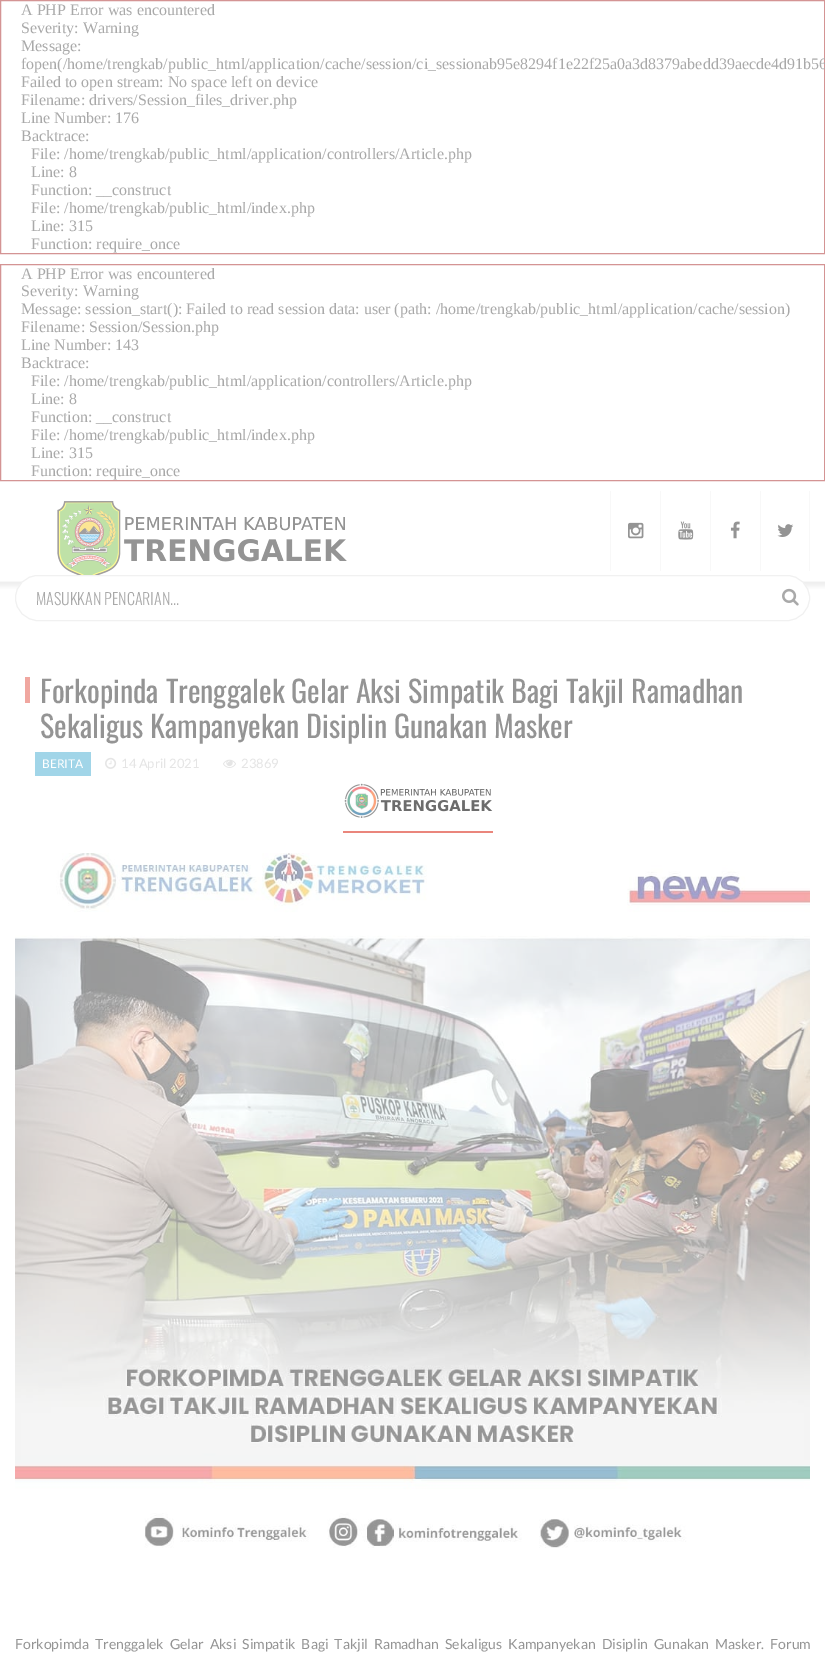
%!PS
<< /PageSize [825 1661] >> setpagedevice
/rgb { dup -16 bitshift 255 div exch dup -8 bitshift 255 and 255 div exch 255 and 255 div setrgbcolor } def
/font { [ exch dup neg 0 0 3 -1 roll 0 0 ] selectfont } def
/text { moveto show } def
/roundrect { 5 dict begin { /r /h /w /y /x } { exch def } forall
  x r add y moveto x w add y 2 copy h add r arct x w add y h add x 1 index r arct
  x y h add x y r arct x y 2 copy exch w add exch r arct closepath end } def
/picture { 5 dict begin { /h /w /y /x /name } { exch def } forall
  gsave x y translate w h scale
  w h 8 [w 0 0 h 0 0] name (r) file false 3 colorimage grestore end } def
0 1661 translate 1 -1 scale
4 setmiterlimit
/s1 { /LiberationSerif-Regular 16 font 16#A9A9A9 rgb } def
/s2 { /Oswald-Light 16 font 16#A9A9A9 rgb } def
/s3 { /Oswald-Regular 30 font 16#949494 rgb } def
/s4 { /Lato-Regular 12 font 16#FFFFFF rgb } def
/s5 { /Lato-Regular 13 font 16#E5E5E5 rgb } def
16#FFFFFF rgb
0 0 825 1661 rectfill
16#D49494 rgb
0.5 0.5 824 253 rectstroke
s1
(A PHP Error was encountered) 21 15 text
(Severity: Warning) 21 33 text
(Message:) 21 51 text
(fopen\(/home/trengkab/public_html/application/cache/session/ci_sessionab95e8294f1e22f25a0a3d8379abedd39aecde4d91b56) 21 69 text
(Failed to open stream: No space left on device) 21 87 text
(Filename: drivers/Session_files_driver.php) 21 105 text
(Line Number: 176) 21 123 text
(Backtrace:) 21 141 text
(File: /home/trengkab/public_html/application/controllers/Article.php) 31 159 text
(Line: 8) 31 177 text
(Function: __construct) 31 195 text
(File: /home/trengkab/public_html/index.php) 31 213 text
(Line: 315) 31 231 text
(Function: require_once) 31 249 text
16#D49494 rgb
0.5 264.5 824 216 rectstroke
s1
(A PHP Error was encountered) 21 279 text
(Severity: Warning) 21 296 text
(Message: session_start\(\): Failed to read session data: user \(path: /home/trengkab/public_html/application/cache/session\)) 21 314 text
(Filename: Session/Session.php) 21 332 text
(Line Number: 143) 21 350 text
(Backtrace:) 21 368 text
(File: /home/trengkab/public_html/application/controllers/Article.php) 31 386 text
(Line: 8) 31 404 text
(Function: __construct) 31 422 text
(File: /home/trengkab/public_html/index.php) 31 440 text
(Line: 315) 31 458 text
(Function: require_once) 31 476 text
16#F8F8F8 rgb
0 581 825 1 rectfill
(pic1.raw) 57 501 290 74 picture
610 491 1 80 rectfill
(pic2.raw) 628 522 16 17 picture
660 491 1 80 rectfill
(pic3.raw) 678 521 16 19 picture
710 491 1 80 rectfill
(pic4.raw) 730 521 10 18 picture
809 491 1 80 rectfill
760 491 1 80 rectfill
(pic5.raw) 777 524 17 13 picture
(pic6.raw) 0 582 825 7 picture
16#FFFFFF rgb
15.5 575.5 794 45 22.5 roundrect gsave fill grestore
16#F1F1F1 rgb
stroke
s2
(MASUKKAN PENCARIAN...) 36 605 text
(pic7.raw) 782 588 17 18 picture
16#F0A7A0 rgb
25 677 5 26 rectfill
s3
(Forkopinda Trenggalek Gelar Aksi Simpatik Bagi Takjil Ramadhan) 40 703 text
(Sekaligus Kampanyekan Disiplin Gunakan Masker) 40 738 text
16#A1D5E8 rgb
35 752 56 24 rectfill
s4
(BERITA) 42 768 text
(pic8.raw) 105 757 12 12 picture
s5
(14 April 2021) 121 768 text
(pic9.raw) 223 759 13 9 picture
(23869) 241 768 text
(pic10.raw) 15 853 795 695 picture
/Lato-Regular 14 font
16#949494 rgb
15 1649 moveto 3.25 0 32 (Forkopimda Trenggalek Gelar Aksi Simpatik Bagi Takjil Ramadhan Sekaligus Kampanyekan Disiplin Gunakan Masker. Forum) widthshow
(pic11.raw) 344 783 149 35 picture
16#EA867C rgb
343 831 150 2 rectfill
showpage
